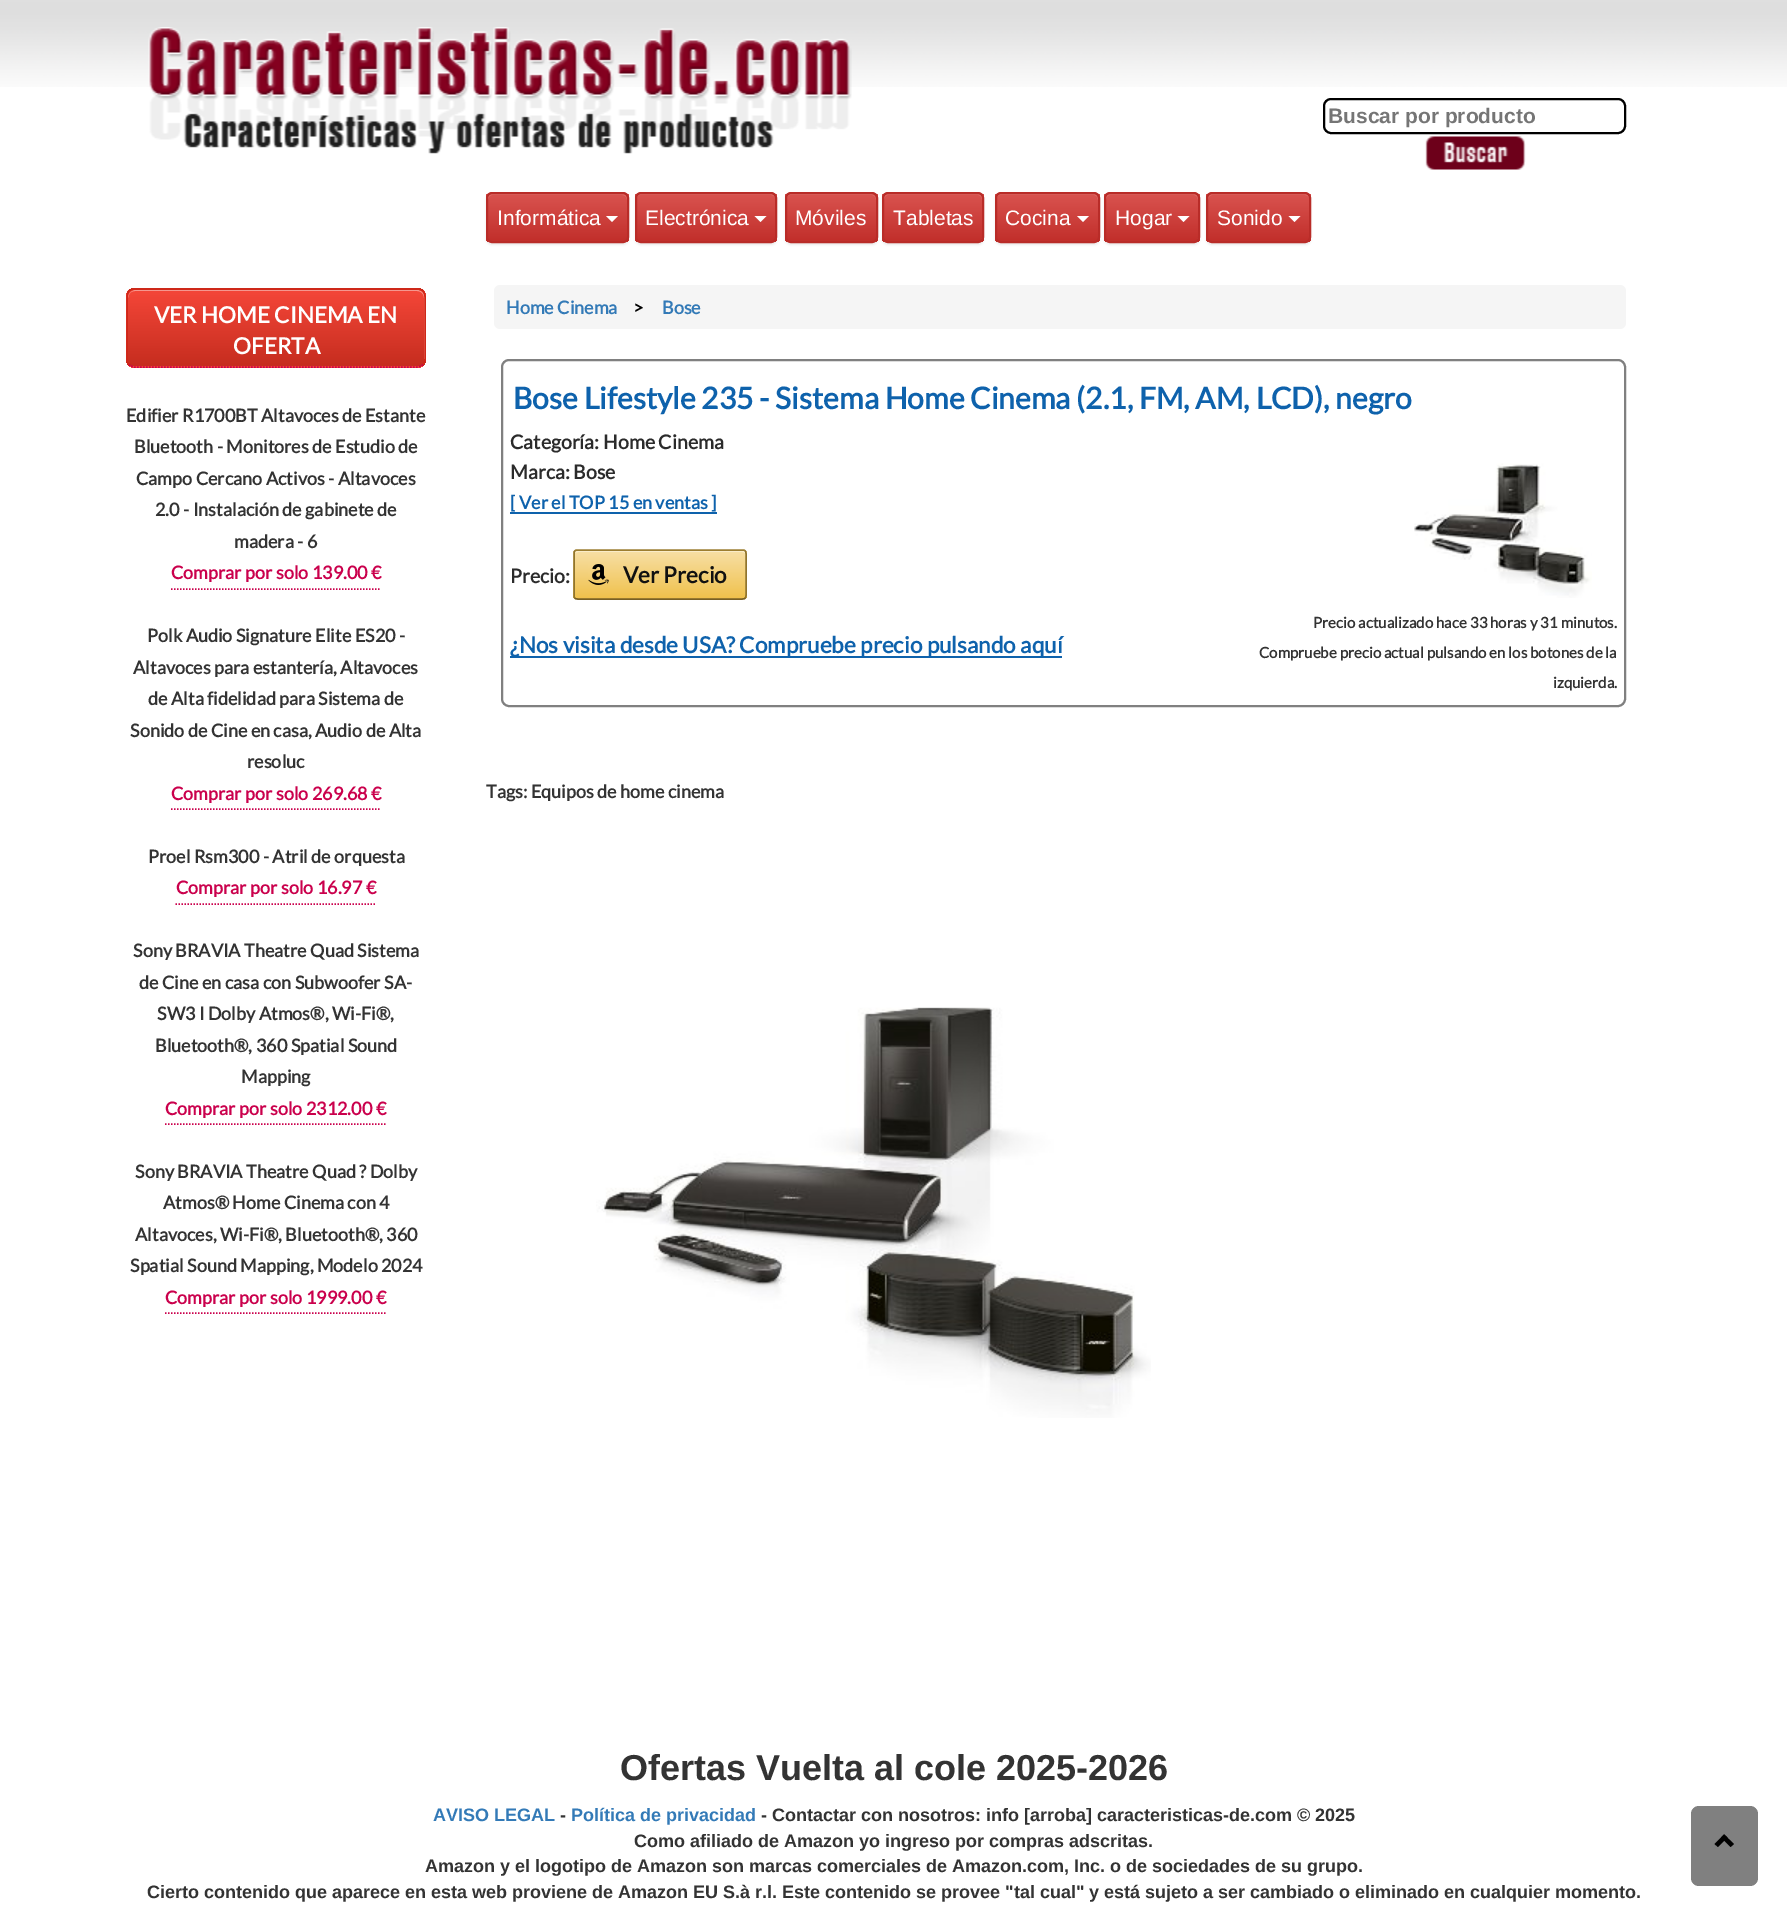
%!PS
<< /PageSize [1787 1908] /PageUsesTransparency true >> setpagedevice
/rgb { dup -16 bitshift 255 div exch dup -8 bitshift 255 and 255 div exch 255 and 255 div setrgbcolor } def
/font { [ exch dup neg 0 0 3 -1 roll 0 0 ] selectfont } def
/text { moveto show } def
/alpha { dup .setfillconstantalpha .setstrokeconstantalpha } def
/roundrect { 5 dict begin { /r /h /w /y /x } { exch def } forall
  x r add y moveto x w add y 2 copy h add r arct x w add y h add x 1 index r arct
  x y h add x y r arct x y 2 copy exch w add exch r arct closepath end } def
/shadow { 12 dict begin { /a /b /q /h /w /y /x } { exch def } forall gsave /was 0 def
  9 -2 -9 { dup b mul 4 div /e exch def 1 sub .425 mul 2.718 exch exp 1 add a .99 .min exch div /now exch def
    1 1 now sub 1 was sub div sub alpha /was now def
    w h .min e 2 mul add 0 gt { x e sub y e sub w e 2 mul add h e 2 mul add
      q e add b .6 mul add w h .min 2 div e add .min 0 .max roundrect fill } if } for grestore end } def
/picture { 5 dict begin { /h /w /y /x /name } { exch def } forall
  gsave x y translate w h scale
  w h 8 [w 0 0 h 0 0] name (r) file false 3 colorimage grestore end } def
0 .pushpdf14devicefilter
0 1908 translate 1 -1 scale
4 setmiterlimit
/s1 { /LiberationSans-Bold 21 font 16#757575 rgb } def
/s2 { /LiberationSans-Regular 21 font 16#FFFFFF rgb } def
/s3 { /Lato-Bold 22.5 font 16#FFFFFF rgb } def
/s4 { /Lato-Bold 18 font 16#333333 rgb } def
/s5 { /Lato-Bold 18 font 16#CA004C rgb } def
/s6 { /Lato-Bold 18 font 16#337AB7 rgb } def
/s7 { /Lato-Bold 18 font 16#000000 rgb } def
/s8 { /Lato-Bold 30 font 16#0E62AC rgb } def
/s9 { /Lato-Bold 19.5 font 16#2B2B2B rgb } def
/s10 { /Lato-Bold 18 font 16#0E62AC rgb } def
/s11 { /Lato-Bold 22.5 font 16#111111 rgb } def
/s12 { /Lato-Bold 22.5 font 16#0E62AC rgb } def
/s13 { /Lato-Bold 15 font 16#333333 rgb } def
/s14 { /LiberationSans-Bold 36 font 16#333333 rgb } def
/s15 { /LiberationSans-Bold 18 font 16#337AB7 rgb } def
/s16 { /LiberationSans-Bold 18 font 16#333333 rgb } def
16#FFFFFF rgb
0 0 1787 1908 rectfill
(pic1.raw) 0 0 1787 87 picture
(pic2.raw) 126 0 1536 87 picture
(pic3.raw) 148 27 704 127 picture
16#000000 rgb
2 setlinewidth
1324 99 301 34 7 roundrect stroke
s1
(Buscar por producto) 1328 123 text
(pic4.raw) 1425 136 101 34 picture
16#000000 rgb
486 194 143 51 6 1 0.07 shadow
gsave
486 192 143 51 6 roundrect clip newpath
gsave 486 194 moveto 629 194 lineto 629 242 lineto 486 242 lineto closepath clip newpath
<< /ShadingType 2 /ColorSpace /DeviceRGB /Coords [557 194 557 242] /Extend [true true] /Function << /FunctionType 2 /Domain [0 1] /C0 [0.851 0.325 0.31] /C1 [0.757 0.18 0.165] /N 1 >> >> shfill grestore
grestore
16#DF6D69 rgb
492 195 moveto 622 195 lineto 625 195 627 197 627 200 curveto 627 199 lineto 627 196 625 194 622 194 curveto 493 194 lineto 490 194 488 196 488 199 curveto 488 200 lineto 488 197 490 195 492 195 curveto closepath fill
16#B92C28 rgb
487 193 141 49 5 roundrect stroke
s2
(Informática) 497 225 text
606 216 moveto 618 216 lineto 612 222 lineto closepath fill
16#000000 rgb
635 194 142 51 6 1 0.07 shadow
gsave
635 192 142 51 6 roundrect clip newpath
gsave 635 194 moveto 777 194 lineto 777 242 lineto 635 242 lineto closepath clip newpath
<< /ShadingType 2 /ColorSpace /DeviceRGB /Coords [706 194 706 242] /Extend [true true] /Function << /FunctionType 2 /Domain [0 1] /C0 [0.851 0.325 0.31] /C1 [0.757 0.18 0.165] /N 1 >> >> shfill grestore
grestore
0.15 alpha
16#FFFFFF rgb
640 195 moveto 771 195 lineto 773 195 776 197 776 200 curveto 776 199 lineto 776 196 774 194 771 194 curveto 641 194 lineto 638 194 636 196 636 199 curveto 636 200 lineto 636 197 638 195 640 195 curveto closepath fill
1 alpha
16#B92C28 rgb
636 193 140 49 5 roundrect stroke
s2
(Electrónica) 645 225 text
754.5 216 moveto 766.5 216 lineto 760.5 222 lineto closepath fill
16#000000 rgb
785 194 93 51 6 1 0.07 shadow
gsave
785 192 93 51 6 roundrect clip newpath
gsave 785 194 moveto 878 194 lineto 878 242 lineto 785 242 lineto closepath clip newpath
<< /ShadingType 2 /ColorSpace /DeviceRGB /Coords [831 194 831 242] /Extend [true true] /Function << /FunctionType 2 /Domain [0 1] /C0 [0.851 0.325 0.31] /C1 [0.757 0.18 0.165] /N 1 >> >> shfill grestore
grestore
16#DF6D69 rgb
790 195 moveto 872 195 lineto 874 195 876 197 876 200 curveto 876 191 863 194 858 194 curveto 804 194 lineto 799 194 786 191 786 200 curveto 786 197 788 195 790 195 curveto closepath fill
16#B92C28 rgb
786 193 91 49 5 roundrect stroke
s2
(Móviles) 795 225 text
16#000000 rgb
882 194 102 51 6 1 0.07 shadow
gsave
882 192 102 51 6 roundrect clip newpath
gsave 882 194 moveto 984 194 lineto 984 242 lineto 882 242 lineto closepath clip newpath
<< /ShadingType 2 /ColorSpace /DeviceRGB /Coords [933 194 933 242] /Extend [true true] /Function << /FunctionType 2 /Domain [0 1] /C0 [0.851 0.325 0.31] /C1 [0.757 0.18 0.165] /N 1 >> >> shfill grestore
grestore
0.15 alpha
16#FFFFFF rgb
888 195 moveto 978 195 lineto 980 195 982 197 982 200 curveto 982 238 lineto 981 241 lineto 982 240 983 238 983 237 curveto 983 199 lineto 983 196 981 194 978 194 curveto 889 194 lineto 886 194 884 196 884 199 curveto 884 200 lineto 884 197 886 195 888 195 curveto closepath fill
1 alpha
16#B92C28 rgb
883 193 100 49 5 roundrect stroke
s2
(Tabletas) 893 225 text
16#000000 rgb
995 194 105 51 6 1 0.07 shadow
gsave
995 192 105 51 6 roundrect clip newpath
gsave 995 194 moveto 1100 194 lineto 1100 242 lineto 995 242 lineto closepath clip newpath
<< /ShadingType 2 /ColorSpace /DeviceRGB /Coords [1047 194 1047 242] /Extend [true true] /Function << /FunctionType 2 /Domain [0 1] /C0 [0.851 0.325 0.31] /C1 [0.757 0.18 0.165] /N 1 >> >> shfill grestore
grestore
16#DF6D69 rgb
1000 195 moveto 1094 195 lineto 1096 195 1098 197 1098 200 curveto 1098 190 1083 194 1078 194 curveto 1016 194 lineto 1011 194 996 190 996 200 curveto 996 197 998 195 1000 195 curveto closepath fill
16#B92C28 rgb
996 193 103 49 5 roundrect stroke
s2
(Cocina) 1005 225 text
1077 216 moveto 1089 216 lineto 1083 222 lineto closepath fill
16#000000 rgb
1104 194 96 51 6 1 0.07 shadow
gsave
1104 192 96 51 6 roundrect clip newpath
gsave 1104 194 moveto 1200 194 lineto 1200 242 lineto 1104 242 lineto closepath clip newpath
<< /ShadingType 2 /ColorSpace /DeviceRGB /Coords [1152 194 1152 242] /Extend [true true] /Function << /FunctionType 2 /Domain [0 1] /C0 [0.851 0.325 0.31] /C1 [0.757 0.18 0.165] /N 1 >> >> shfill grestore
grestore
0.15 alpha
16#FFFFFF rgb
1110 195 moveto 1194 195 lineto 1196 195 1198 197 1198 200 curveto 1198 238 lineto 1197 241 lineto 1198 240 1199 238 1199 237 curveto 1199 199 lineto 1199 196 1197 194 1194 194 curveto 1111 194 lineto 1108 194 1106 196 1106 199 curveto 1106 200 lineto 1106 197 1108 195 1110 195 curveto closepath fill
1 alpha
16#B92C28 rgb
1105 193 94 49 5 roundrect stroke
s2
(Hogar) 1115 225 text
1177.5 216 moveto 1189.5 216 lineto 1183.5 222 lineto closepath fill
16#000000 rgb
1206 194 105 51 6 1 0.07 shadow
gsave
1206 192 105 51 6 roundrect clip newpath
gsave 1206 194 moveto 1311 194 lineto 1311 242 lineto 1206 242 lineto closepath clip newpath
<< /ShadingType 2 /ColorSpace /DeviceRGB /Coords [1259 194 1259 242] /Extend [true true] /Function << /FunctionType 2 /Domain [0 1] /C0 [0.851 0.325 0.31] /C1 [0.757 0.18 0.165] /N 1 >> >> shfill grestore
grestore
16#DF6D69 rgb
1212 195 moveto 1305 195 lineto 1307 195 1310 197 1310 200 curveto 1310 190 1295 194 1290 194 curveto 1228 194 lineto 1223 194 1208 190 1208 200 curveto 1208 197 1210 195 1212 195 curveto closepath fill
16#B92C28 rgb
1207 193 103 49 5 roundrect stroke
s2
(Sonido) 1217 225 text
1288.5 216 moveto 1300.5 216 lineto 1294.5 222 lineto closepath fill
gsave
126 288 300 80 9 roundrect clip newpath
gsave 126 288 moveto 426 288 lineto 426 290 lineto 126 290 lineto closepath clip newpath
<< /ShadingType 2 /ColorSpace /DeviceRGB /Coords [276 213 276 290] /Extend [true true] /Function << /FunctionType 3 /Domain [0 1] /Functions [<< /FunctionType 2 /Domain [0 1] /C0 [0.949 0.271 0.216] /C1 [0.949 0.271 0.216] /N 1 >> << /FunctionType 2 /Domain [0 1] /C0 [0.949 0.271 0.216] /C1 [0.776 0.176 0.122] /N 1 >>] /Bounds [0.05] /Encode [0 1 0 1] >> >> shfill grestore
gsave 126 290 moveto 426 290 lineto 426 366 lineto 126 366 lineto closepath clip newpath
<< /ShadingType 2 /ColorSpace /DeviceRGB /Coords [276 290 276 366] /Extend [true true] /Function << /FunctionType 3 /Domain [0 1] /Functions [<< /FunctionType 2 /Domain [0 1] /C0 [0.949 0.271 0.216] /C1 [0.949 0.271 0.216] /N 1 >> << /FunctionType 2 /Domain [0 1] /C0 [0.949 0.271 0.216] /C1 [0.776 0.176 0.122] /N 1 >>] /Bounds [0.05] /Encode [0 1 0 1] >> >> shfill grestore
gsave 126 366 moveto 426 366 lineto 426 368 lineto 126 368 lineto closepath clip newpath
<< /ShadingType 2 /ColorSpace /DeviceRGB /Coords [276 366 276 443] /Extend [true true] /Function << /FunctionType 3 /Domain [0 1] /Functions [<< /FunctionType 2 /Domain [0 1] /C0 [0.949 0.271 0.216] /C1 [0.949 0.271 0.216] /N 1 >> << /FunctionType 2 /Domain [0 1] /C0 [0.949 0.271 0.216] /C1 [0.776 0.176 0.122] /N 1 >>] /Bounds [0.05] /Encode [0 1 0 1] >> >> shfill grestore
grestore
16#F5978E rgb
135 291 moveto 417 291 lineto 421 291 424 294 424 298 curveto 424 360 lineto 424 362 lineto 424 361 425 360 425 358 curveto 425 298 lineto 425 294 421 290 417 290 curveto 136 290 lineto 132 290 128 294 128 298 curveto 128 294 131 291 135 291 curveto closepath fill
16#CA004C rgb
1.5 setlinewidth
[1.5 1.5] 0 setdash
423 364.5 moveto 421.5 366 419 367 417 367 curveto 135 367 lineto 133 367 130.5 366 129 364.5 curveto stroke
16#D02718 rgb
[] 0 setdash
129 364.5 moveto 127.5 363 127 360.5 127 358.5 curveto 127 297 lineto 127 295 127.5 292.5 129 291 curveto 130.5 289.5 133 289 135 289 curveto 417 289 lineto 419 289 421.5 289.5 423 291 curveto 424.5 292.5 425 295 425 297 curveto 425 358.5 lineto 425 360.5 424.5 363 423 364.5 curveto stroke
s3
(VER HOME CINEMA EN) 154 323 text
(OFERTA) 233 354 text
s4
(Edifier R1700BT Altavoces de Estante) 126 422 text
(Bluetooth - Monitores de Estudio de) 134 453 text
(Campo Cercano Activos - Altavoces) 136 485 text
(2.0 - Instalación de gabinete de) 155 516 text
(madera - 6) 234 548 text
s5
(Comprar por solo 139.00 €) 171 579 text
[1.5 1.5] 0 setdash
171 589 moveto 381 589 lineto stroke
s4
(Polk Audio Signature Elite ES20 -) 147 642 text
(Altavoces para estantería, Altavoces) 133 674 text
(de Alta fidelidad para Sistema de) 148 705 text
(Sonido de Cine en casa, Audio de Alta) 130 737 text
(resoluc) 247 768 text
s5
(Comprar por solo 269.68 €) 171 800 text
171 809 moveto 381 809 lineto stroke
s4
(Proel Rsm300 - Atril de orquesta) 148 863 text
s5
(Comprar por solo 16.97 €) 176 894 text
175.5 904 moveto 376.5 904 lineto stroke
s4
(Sony BRAVIA Theatre Quad Sistema) 133 957 text
(de Cine en casa con Subwoofer SA-) 139 989 text
(SW3 I Dolby Atmos®, Wi-Fi®,) 157 1020 text
(Bluetooth®, 360 Spatial Sound) 155 1052 text
(Mapping) 241 1083 text
s5
(Comprar por solo 2312.00 €) 165 1115 text
165 1124 moveto 387 1124 lineto stroke
s4
(Sony BRAVIA Theatre Quad ? Dolby) 135 1178 text
(Atmos® Home Cinema con 4) 163 1209 text
(Altavoces, Wi-Fi®, Bluetooth®, 360) 135 1241 text
(Spatial Sound Mapping, Modelo 2024) 130 1272 text
s5
(Comprar por solo 1999.00 €) 165 1304 text
165 1313 moveto 387 1313 lineto stroke
16#F5F5F5 rgb
494 285 1132 44 6 roundrect fill
s6
(Home Cinema) 506 314 text
s7
(>) 633 314 text
s6
(Bose) 662 314 text
16#808080 rgb
2 setlinewidth
[] 0 setdash
502 360 1123 346 7 roundrect stroke
s8
(Bose Lifestyle 235 - Sistema Home Cinema \(2.1, FM, AM, LCD\), negro) 513 409 text
s9
(Categoría: Home Cinema) 510 449 text
(Marca: Bose) 510 479 text
s10
([ Ver el TOP 15 en ventas ]) 510 509 text
510 512 207 2 rectfill
s9
(Precio:) 510 583 text
gsave
573 549 174 51 5 roundrect clip newpath
gsave 573 551 moveto 747 551 lineto 747 599 lineto 573 599 lineto closepath clip newpath
<< /ShadingType 2 /ColorSpace /DeviceRGB /Coords [660 551 660 599] /Extend [true true] /Function << /FunctionType 2 /Domain [0 1] /C0 [0.969 0.875 0.647] /C1 [0.941 0.757 0.294] /N 1 >> >> shfill grestore
grestore
16#FAECC8 rgb
578 552 moveto 742 552 lineto 744 552 746 553 746 555 curveto 746 553 746 551 744 551 curveto 578 551 lineto 577 551 576 552 575 553 curveto closepath fill
16#9C7E31 rgb
1.5 setlinewidth
575 551 moveto 575.5 550 576.5 550 577.5 550 curveto 742.5 550 lineto 743.5 550 744.5 550 745 551 curveto stroke
16#90742D rgb
745 551 moveto 746 551.5 746 552.5 746 553.5 curveto 746 595.5 lineto 746 596.5 746 597.5 745 598 curveto stroke
16#786025 rgb
745 598 moveto 744.5 599 743.5 599 742.5 599 curveto 577.5 599 lineto 576.5 599 575.5 599 575 598 curveto stroke
16#90742D rgb
575 598 moveto 574 597.5 574 596.5 574 595.5 curveto 574 553.5 lineto 574 552.5 574 551.5 575 551 curveto stroke
(pic5.raw) 588 564 21 21 picture
s11
(Ver Precio) 623 583 text
16#0E62AC rgb
510 656 552 2 rectfill
(¿Nos visita desde USA? Compruebe precio pulsando aquí) 510 653 text
(pic6.raw) 1414 463 178 135 picture
s13
(Precio actualizado hace 33 horas y 31 minutos.) 1313 628 text
(Compruebe precio actual pulsando en los botones de la) 1259 658 text
(izquierda.) 1553 688 text
s4
(Tags: Equipos de home cinema) 486 798 text
(pic7.raw) 596 1007 555 411 picture
s14
(Ofertas Vuelta al cole 2025-2026) 620 1780 text
s15
(AVISO LEGAL) 433 1821 text
s16
(-) 560 1821 text
s15
(Política de privacidad) 571 1821 text
s16
(- Contactar con nosotros: info [arroba] caracteristicas-de.com © 2025) 761 1821 text
16#808080 rgb
1691 1806 67 80 8 roundrect fill
16#000000 rgb
1718 1847 moveto 1714.5 1844 lineto 1724 1834.5 lineto 1727.5 1837.5 lineto closepath fill
1730.5 1847 moveto 1721 1837.5 lineto 1724 1834.5 lineto 1734 1844 lineto closepath fill
s16
(Como afiliado de Amazon yo ingreso por compras adscritas.) 634 1847 text
(Amazon y el logotipo de Amazon son marcas comerciales de Amazon.com, Inc. o de sociedades de su grupo.) 425 1872 text
(Cierto contenido que aparece en esta web proviene de Amazon EU S.à r.l. Este contenido se provee "tal cual" y está sujeto a ser cambiado o eliminado en cualquier momento.) 147 1898 text
.poppdf14devicefilter showpage
